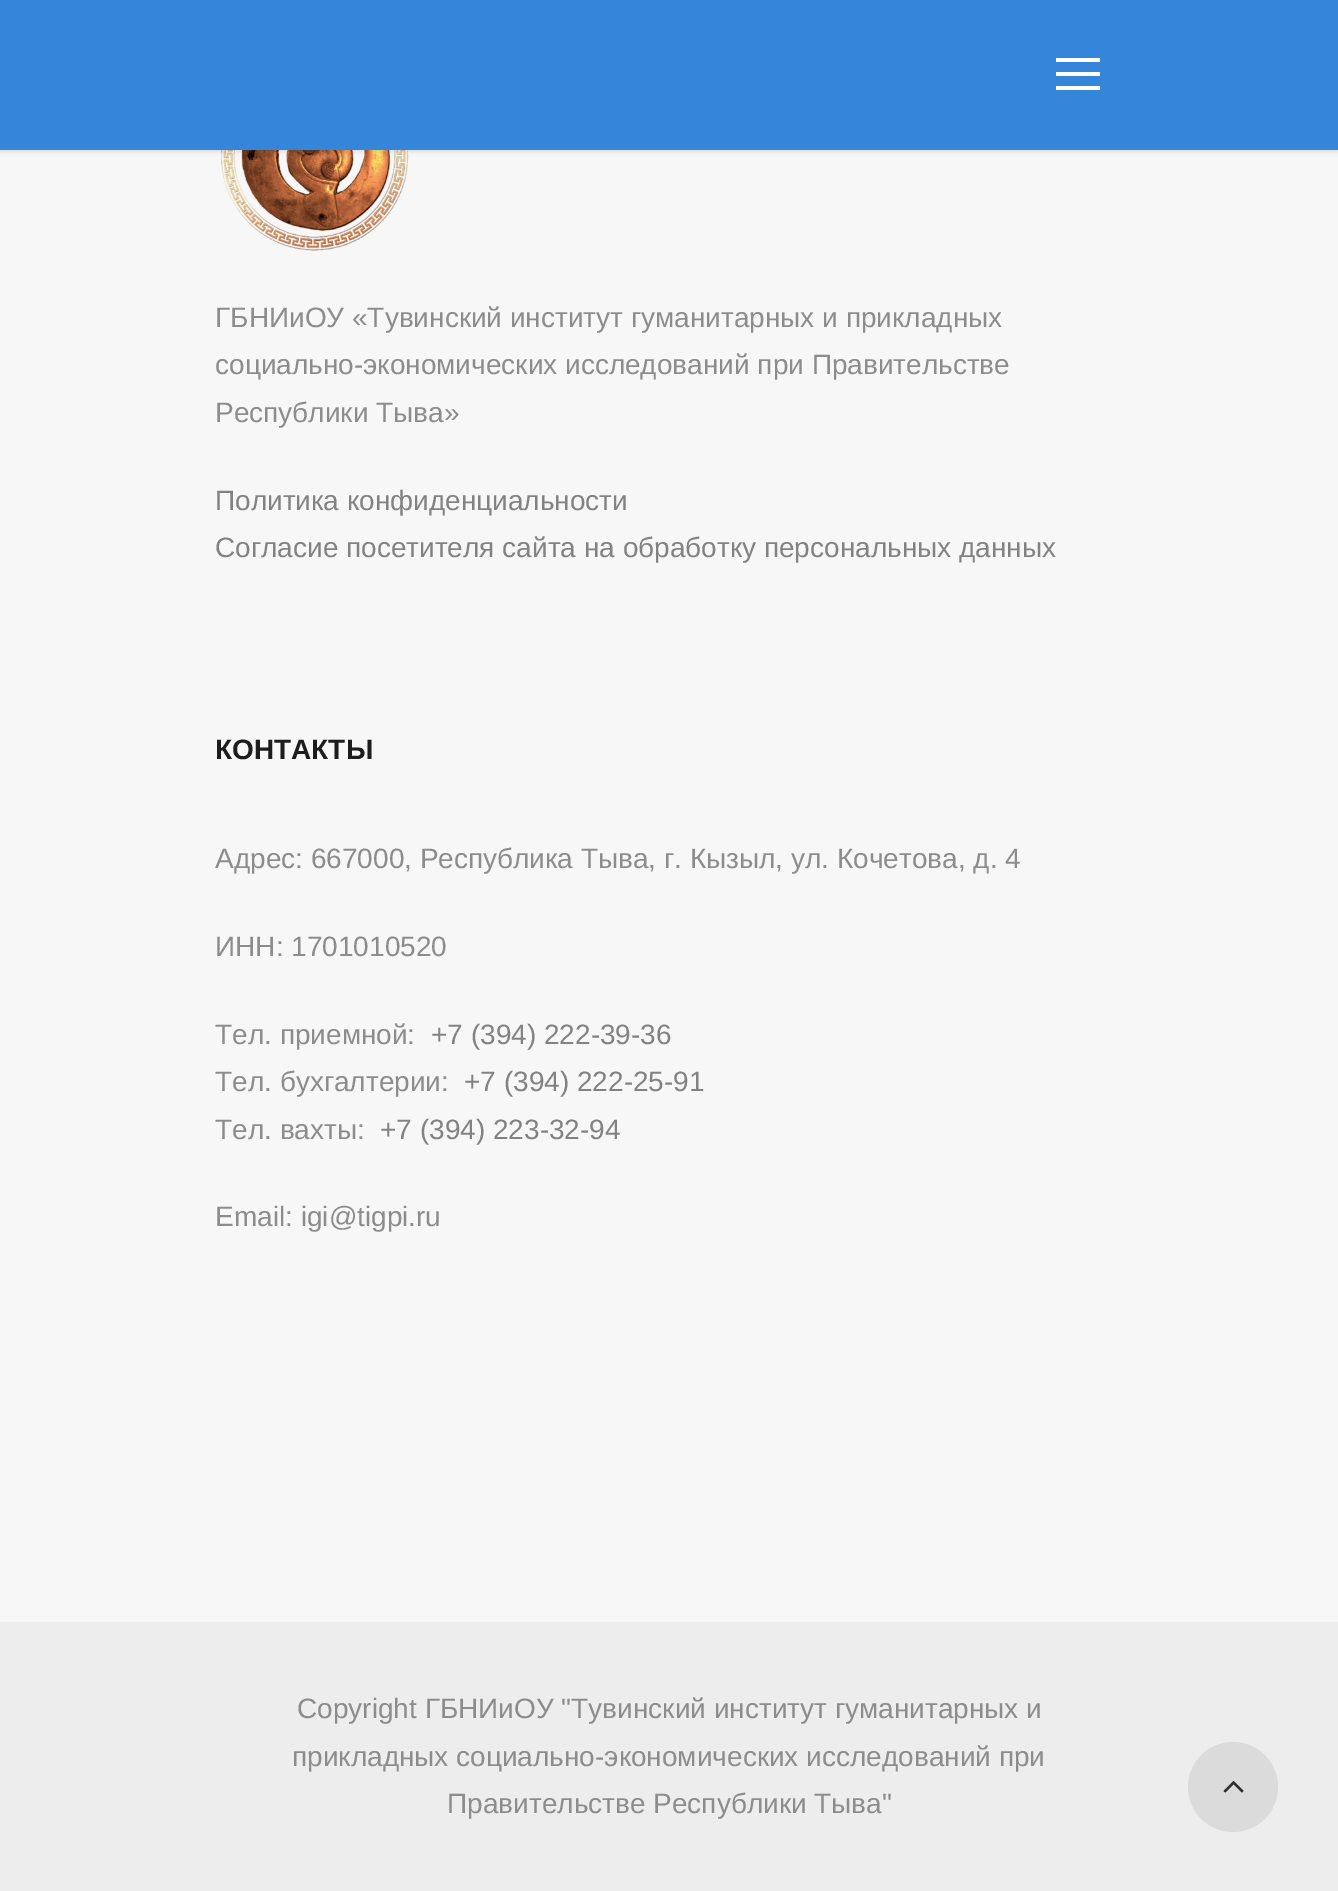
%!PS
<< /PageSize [1338 1891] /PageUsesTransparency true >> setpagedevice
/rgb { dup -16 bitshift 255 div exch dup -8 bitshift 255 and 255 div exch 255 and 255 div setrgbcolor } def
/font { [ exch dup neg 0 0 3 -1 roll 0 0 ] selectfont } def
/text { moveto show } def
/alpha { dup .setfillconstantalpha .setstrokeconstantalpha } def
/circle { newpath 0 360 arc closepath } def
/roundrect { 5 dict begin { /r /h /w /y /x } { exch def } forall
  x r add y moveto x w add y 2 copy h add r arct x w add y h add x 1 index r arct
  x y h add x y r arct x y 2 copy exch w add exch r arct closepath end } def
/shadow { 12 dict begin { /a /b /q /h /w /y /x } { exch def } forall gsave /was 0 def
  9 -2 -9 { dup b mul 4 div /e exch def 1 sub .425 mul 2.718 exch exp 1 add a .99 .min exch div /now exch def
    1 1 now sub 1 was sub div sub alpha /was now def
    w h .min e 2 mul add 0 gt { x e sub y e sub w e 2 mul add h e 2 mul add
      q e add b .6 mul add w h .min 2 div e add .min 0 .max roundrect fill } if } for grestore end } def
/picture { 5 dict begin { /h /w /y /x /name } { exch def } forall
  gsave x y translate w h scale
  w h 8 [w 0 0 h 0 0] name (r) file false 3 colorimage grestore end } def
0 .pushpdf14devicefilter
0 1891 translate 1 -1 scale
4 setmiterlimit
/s1 { /LiberationSans-Regular 28 font 16#8C8C8C rgb } def
/s2 { /LiberationSans-Regular 28 font 16#828282 rgb } def
/s3 { /LiberationSans-Bold 28 font 16#1D1D1D rgb } def
16#F7F7F7 rgb
0 0 1338 1891 rectfill
(pic1.raw) 220 150 189 101 picture
16#000000 rgb
0 2 1338 150 0 2 0.1 shadow
16#3585DA rgb
0 0 1338 150 rectfill
16#FFFFFF rgb
1056 58 44 4 rectfill
1056 72 44 4 rectfill
1056 86 44 4 rectfill
s1
(ГБНИиОУ «Тувинский институт гуманитарных и прикладных) 215 327 text
(социально-экономических исследований при Правительстве) 215 374 text
(Республики Тыва») 215 422 text
s2
(Политика конфиденциальности) 215 510 text
(Согласие посетителя сайта на обработку персональных данных) 215 557 text
s3
(КОНТАКТЫ) 215 759 text
s1
(Адрес: 667000, Республика Тыва, г. Кызыл, ул. Кочетова, д. 4) 215 868 text
(ИНН: 1701010520) 215 956 text
(Тел. приемной:) 215 1044 text
s2
(+7 \(394\) 222-39-36) 431 1044 text
s1
(Тел. бухгалтерии:) 215 1091 text
s2
(+7 \(394\) 222-25-91) 464 1091 text
s1
(Тел. вахты:) 215 1139 text
s2
(+7 \(394\) 223-32-94) 380 1139 text
s1
(Email: igi@tigpi.ru) 215 1226 text
16#EDEDED rgb
0 1622 1338 269 rectfill
s1
(Copyright ГБНИиОУ "Тувинский институт гуманитарных и) 297 1718 text
(прикладных социально-экономических исследований при) 292 1766 text
(Правительстве Республики Тыва") 447 1813 text
16#DBDBDB rgb
1233 1787 45 circle fill
(pic2.raw) 1223 1781 21 12 picture
.poppdf14devicefilter showpage
